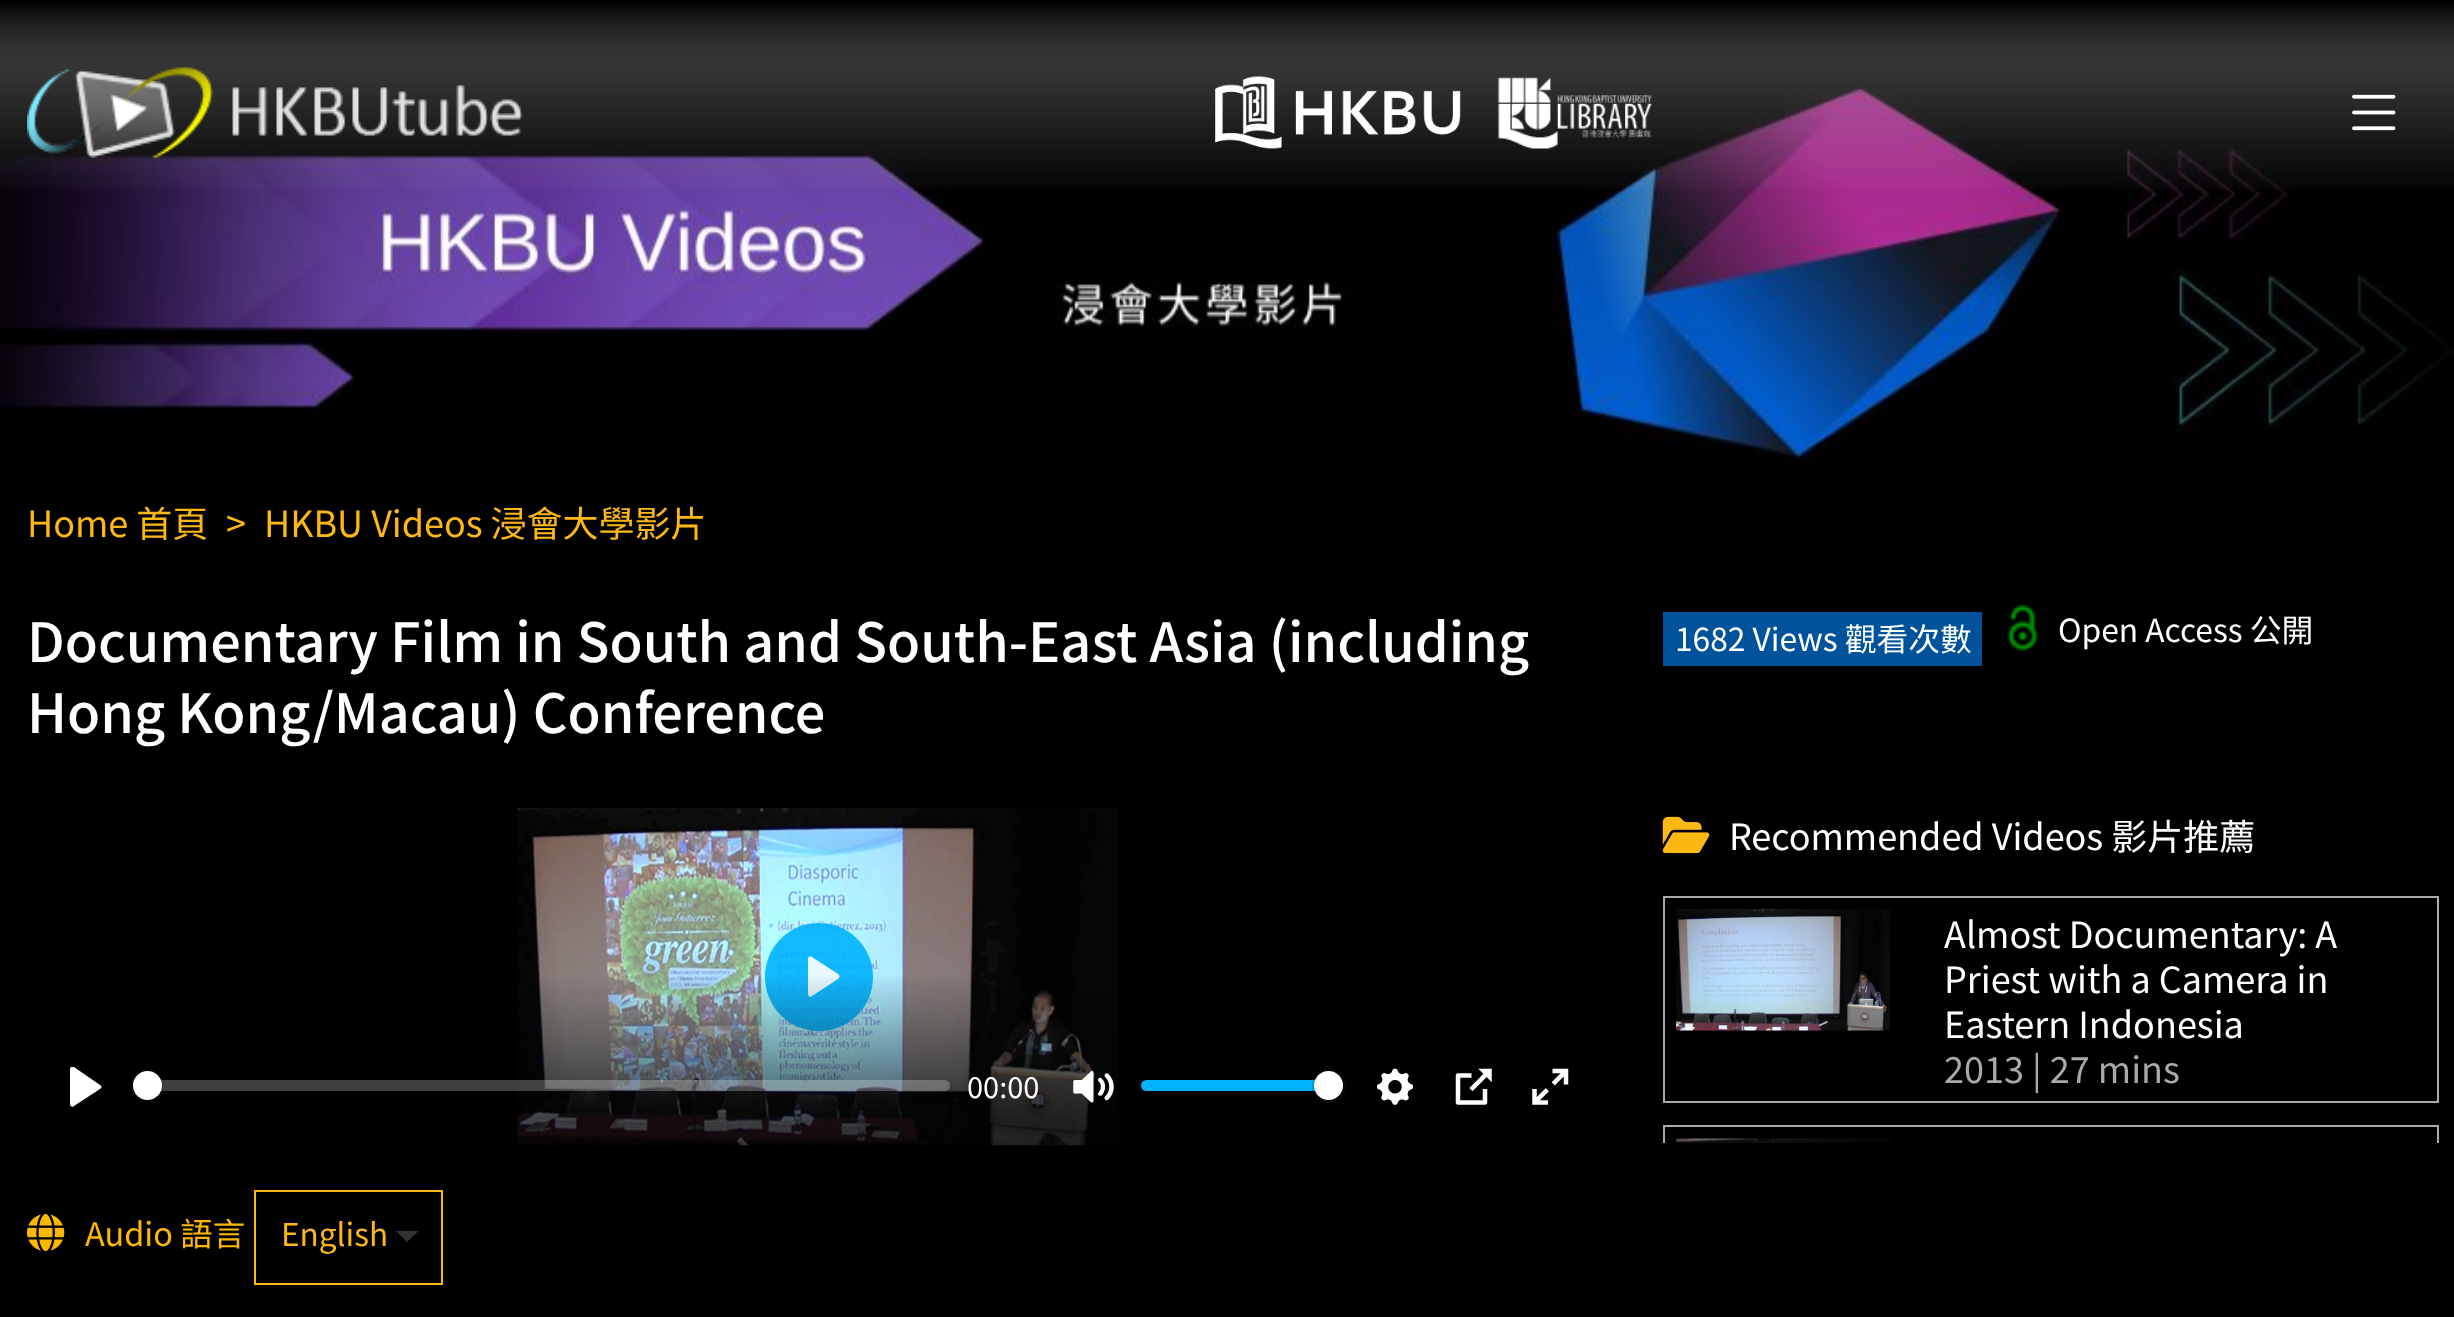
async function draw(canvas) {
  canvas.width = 2454;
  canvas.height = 1317;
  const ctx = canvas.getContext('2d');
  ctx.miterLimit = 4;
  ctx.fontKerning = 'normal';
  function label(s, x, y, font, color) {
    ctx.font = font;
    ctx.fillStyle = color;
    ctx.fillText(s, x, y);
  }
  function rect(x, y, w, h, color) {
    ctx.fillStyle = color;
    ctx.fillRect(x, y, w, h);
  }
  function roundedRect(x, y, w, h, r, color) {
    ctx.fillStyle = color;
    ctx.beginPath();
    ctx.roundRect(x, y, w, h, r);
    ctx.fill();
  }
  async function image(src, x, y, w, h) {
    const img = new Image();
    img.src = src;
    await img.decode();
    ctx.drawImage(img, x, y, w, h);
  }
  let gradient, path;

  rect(0, 0, 2454, 1317, '#000');
  await image('assets/img1.png', 0, 87, 2454, 378);
  gradient = ctx.createLinearGradient(1227, 466, 1227, 0);
  gradient.addColorStop(0.57, '#d0cfcf00');
  gradient.addColorStop(0.82, '#d0cfcf3b');
  gradient.addColorStop(1, '#000000a3');
  ctx.fillStyle = gradient;
  ctx.fillRect(0, 2, 2454, 187);
  await image('assets/img2.png', 27, 67, 496, 91);
  await image('assets/img3.png', 1215, 76, 246, 73);
  await image('assets/img4.png', 1497, 77, 155, 72);
  await image('assets/img5.png', 2352, 94, 44, 37);
  label('Home 首頁', 27, 537, '36px Noto Sans SC', '#fdb813');
  label('>', 226, 537, '36px Noto Sans SC', '#fdb813');
  label('HKBU Videos 浸會大學影片', 264, 537, '36px Noto Sans SC', '#fdb813');
  label('Documentary Film in South and South-East Asia (including', 27, 662, '500 54px Noto Sans SC', '#fff');
  label('Hong Kong/Macau) Conference', 27, 733, '500 54px Noto Sans SC', '#fff');
  rect(1663, 612, 319, 54, '#00529b');
  label('1682 Views 觀看次數', 1675, 651, '31.75px Noto Sans SC', '#fff');
  await image('assets/img6.png', 2006, 605, 33, 46);
  label('Open Access 公開', 2058, 642, '31.75px Noto Sans SC', '#fff');
  await image('assets/img7.png', 517, 808, 601, 338);
  ctx.fillStyle = '#00b2ffe6';
  ctx.beginPath();
  ctx.arc(819, 977, 54, 0, 2 * Math.PI);
  ctx.fill();
  ctx.fillStyle = '#ffffffe6';
  path = new Path2D('M838 974L812 957C810 955 808 957 808 959V994C808 996 810 998 812 996L838 979C840 978 840 975 838 974Z');
  ctx.fill(path);
  gradient = ctx.createLinearGradient(818, 972, 818, 1145);
  gradient.addColorStop(0, '#00000000');
  gradient.addColorStop(1, '#000000bf');
  ctx.fillStyle = gradient;
  ctx.fillRect(517, 977, 601, 168);
  ctx.save();
  ctx.beginPath();
  ctx.rect(65, 1067, 41, 40);
  ctx.clip();
  ctx.fillStyle = '#fff';
  path = new Path2D('M100 1085L74 1067C72 1066 70 1067 70 1069V1104C70 1106 72 1108 74 1106L100 1089C102 1088 102 1086 100 1085Z');
  ctx.fill(path);
  ctx.restore();
  roundedRect(133, 1080, 817, 11, 5.5, '#ffffff40');
  ctx.beginPath();
  ctx.roundRect(132, 1070, 31, 32, 15.5);
  ctx.strokeStyle = '#23282f33';
  ctx.lineWidth = 2;
  ctx.stroke();
  ctx.fillStyle = '#fff';
  ctx.beginPath();
  ctx.arc(147.5, 1085.5, 14.5, 0, 2 * Math.PI);
  ctx.fill();
  label('00:00', 967, 1098, '29px Noto Sans SC', '#fff');
  await image('assets/img8.png', 1073, 1071, 41, 32);
  roundedRect(1141, 1080, 202, 11, 5.5, '#00b2ff');
  ctx.beginPath();
  ctx.arc(1329, 1086, 16, 0, 2 * Math.PI);
  ctx.stroke();
  ctx.fillStyle = '#23282f26';
  ctx.filter = 'blur(1px)';
  ctx.beginPath();
  ctx.roundRect(1314, 1073, 29, 30, 14.5);
  ctx.fill();
  ctx.filter = 'none';
  ctx.fillStyle = '#fff';
  ctx.beginPath();
  ctx.arc(1328.5, 1085.5, 14.5, 0, 2 * Math.PI);
  ctx.fill();
  await image('assets/img9.png', 1377, 1068, 36, 37);
  await image('assets/img10.png', 1455, 1068, 37, 37);
  await image('assets/img11.png', 1532, 1068, 37, 37);
  await image('assets/img12.png', 1662, 816, 48, 38);
  label('Recommended Videos 影片推薦', 1729, 850, '36px Noto Sans SC', '#fff');
  ctx.strokeStyle = '#a7a9ac';
  ctx.strokeRect(1664, 897, 774, 205);
  await image('assets/img13.png', 1676, 909, 214, 122);
  label('Almost Documentary: A', 1944, 948, '36px Noto Sans SC', '#fff');
  label('Priest with a Camera in', 1944, 993, '36px Noto Sans SC', '#fff');
  label('Eastern Indonesia', 1944, 1038, '36px Noto Sans SC', '#fff');
  label('2013 | 27 mins', 1944, 1083, '36px Noto Sans SC', '#a7a9ac');
  ctx.save();
  ctx.beginPath();
  ctx.rect(1663, 873, 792, 270);
  ctx.clip();
  ctx.strokeRect(1664, 1126, 774, 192);
  ctx.restore();
  await image('assets/img14.png', 1676, 1138, 214, 5);
  await image('assets/img15.png', 27, 1213, 38, 39);
  label('Audio 語言', 85, 1246, '32.5px Noto Sans SC', '#fdb800');
  ctx.strokeStyle = '#fdb813';
  ctx.strokeRect(255, 1191, 187, 93);
  label('English', 281, 1246, '31.5px Noto Sans SC', '#fdb813');
  ctx.fillStyle = '#333';
  path = new Path2D('M396 1231H418.5L407 1242Z');
  ctx.fill(path);
}

draw(document.querySelector('canvas'));
